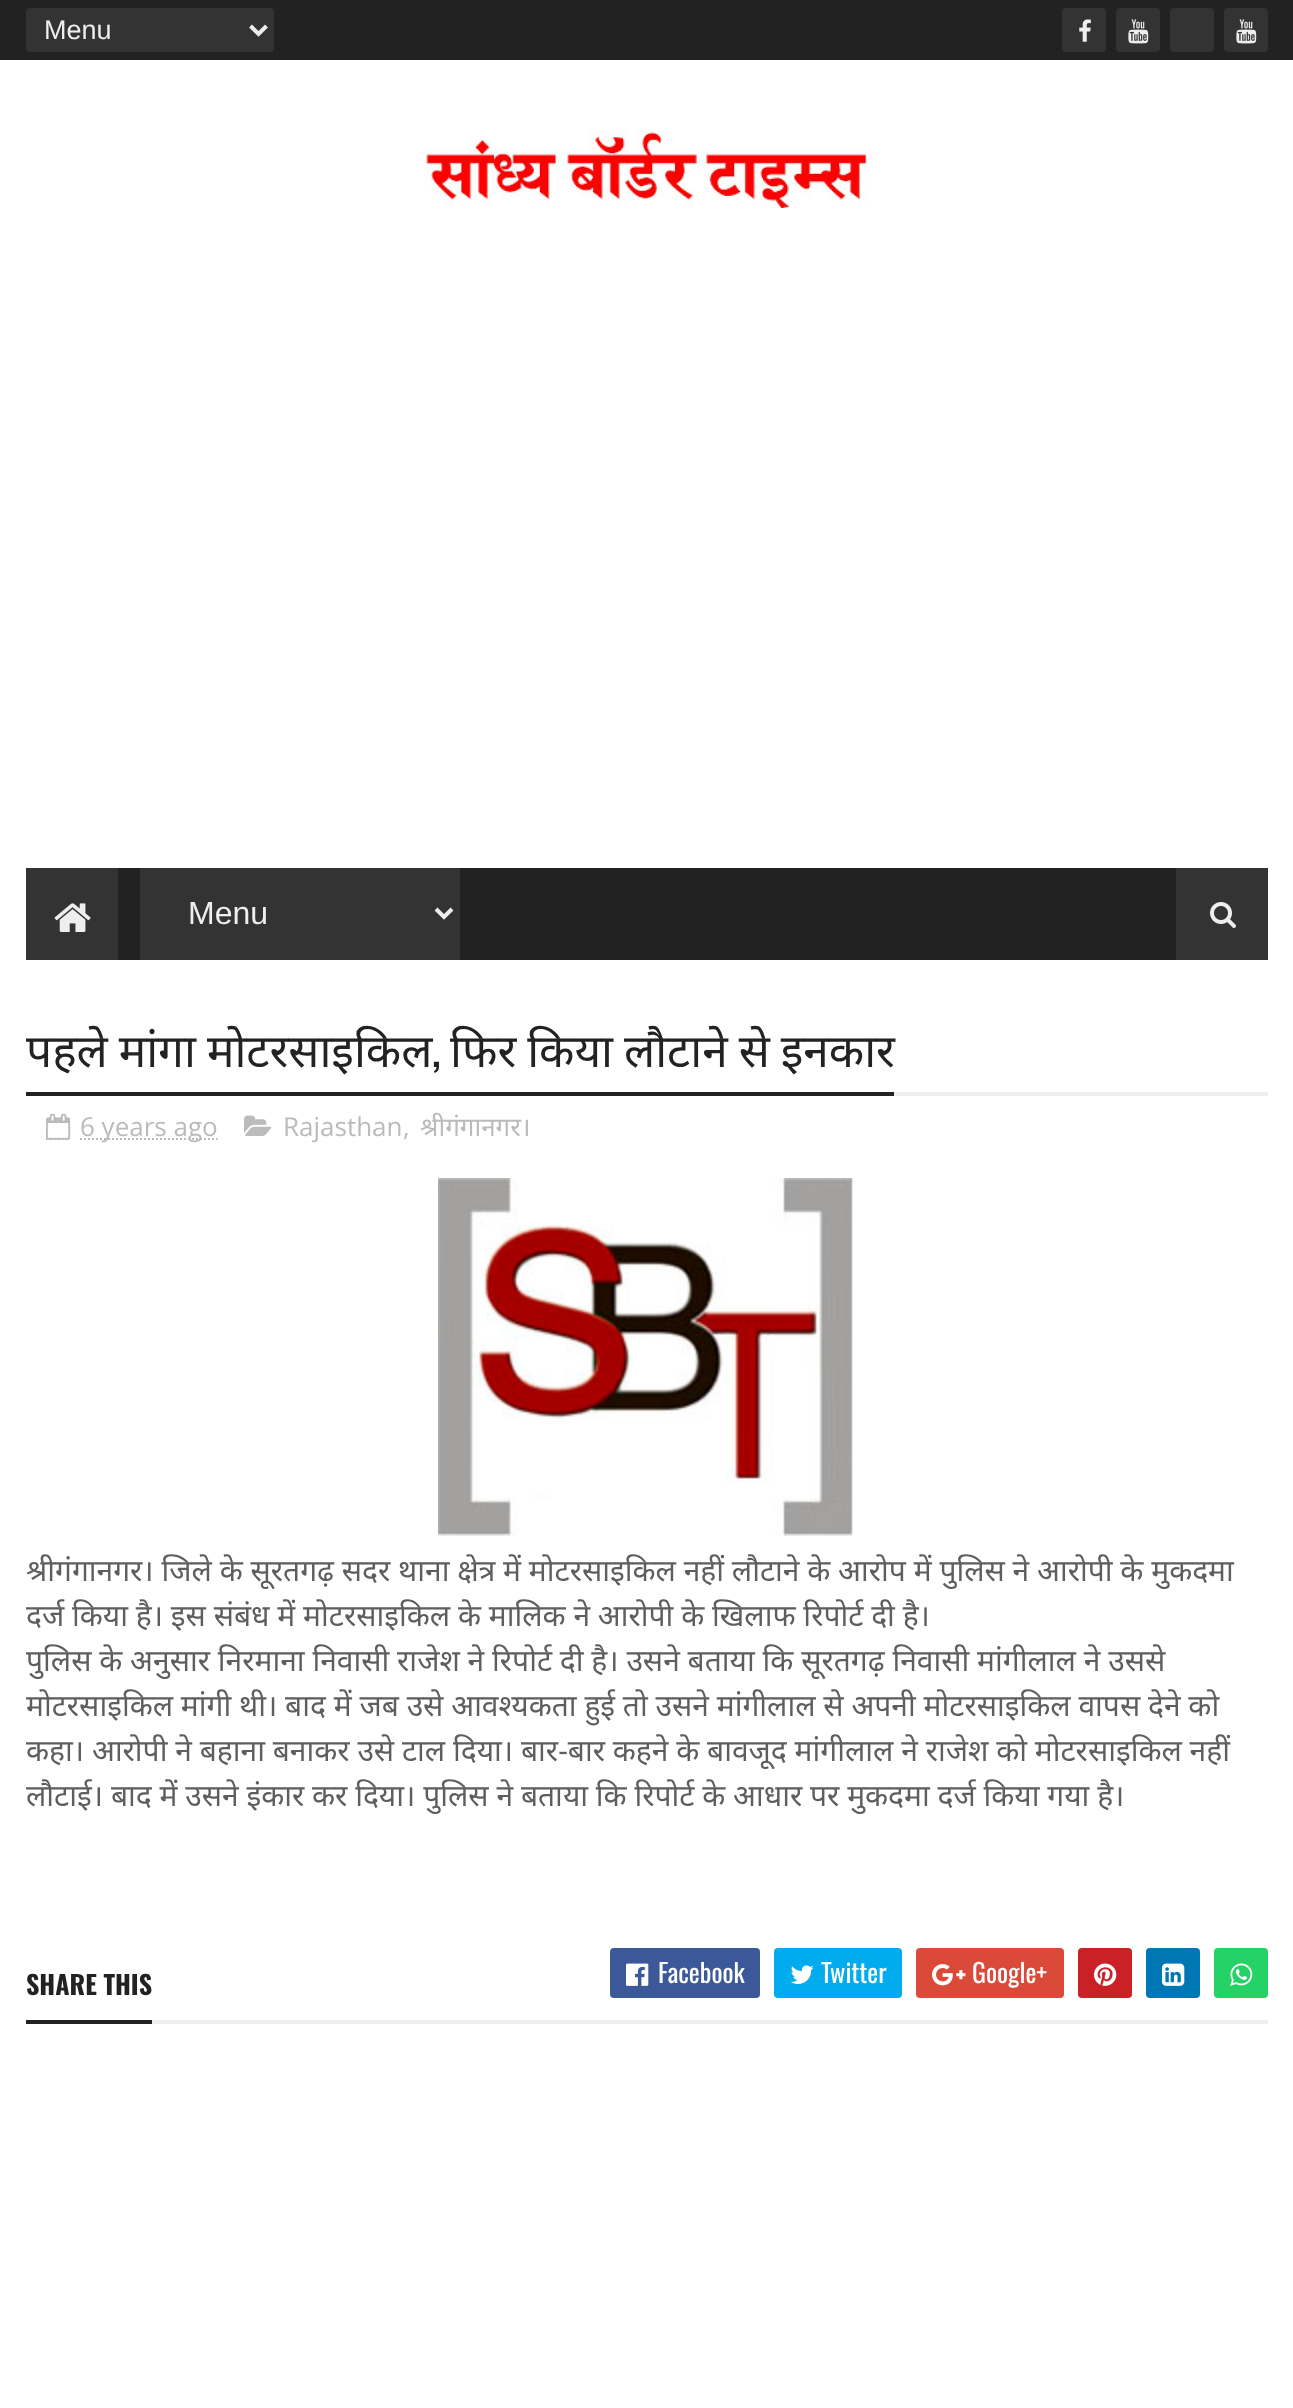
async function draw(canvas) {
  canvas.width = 1293;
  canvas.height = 2408;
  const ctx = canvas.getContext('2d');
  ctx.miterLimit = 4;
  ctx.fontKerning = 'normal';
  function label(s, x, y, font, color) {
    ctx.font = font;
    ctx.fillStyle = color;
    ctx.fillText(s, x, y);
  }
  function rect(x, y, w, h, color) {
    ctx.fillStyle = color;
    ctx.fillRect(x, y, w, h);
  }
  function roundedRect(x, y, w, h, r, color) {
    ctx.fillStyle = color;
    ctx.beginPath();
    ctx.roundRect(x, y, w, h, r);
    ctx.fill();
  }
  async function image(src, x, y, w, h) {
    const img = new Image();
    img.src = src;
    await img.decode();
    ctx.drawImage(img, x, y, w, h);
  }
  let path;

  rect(0, 0, 1293, 2408, '#fff');
  rect(0, 0, 1293, 60, '#222');
  roundedRect(26, 8, 248, 44, 4, '#333');
  path = new Path2D('M250.5 26L258.5 34L266.5 26');
  ctx.strokeStyle = '#eee';
  ctx.lineWidth = 4;
  ctx.stroke(path);
  label('Menu', 44, 39, '27px Liberation Sans', '#eee');
  roundedRect(1062, 8, 44, 44, 4, '#333');
  await image('assets/img1.png', 1079, 19, 12, 23);
  roundedRect(1116, 8, 44, 44, 4, '#333');
  await image('assets/img2.png', 1128, 19, 21, 25);
  roundedRect(1170, 8, 44, 44, 4, '#333');
  roundedRect(1224, 8, 44, 44, 4, '#333');
  await image('assets/img2.png', 1236, 19, 21, 25);
  await image('assets/img3.png', 424, 130, 444, 78);
  rect(118, 868, 1058, 92, '#222');
  rect(26, 868, 92, 92, '#333');
  await image('assets/img4.png', 54, 903, 37, 29);
  rect(140, 868, 320, 92, '#333');
  path = new Path2D('M436 909L444 917L452 909');
  ctx.stroke(path);
  label('Menu', 188, 924, '32px Liberation Sans', '#eee');
  rect(1176, 868, 92, 92, '#333');
  await image('assets/img5.png', 1210, 902, 26, 26);
  rect(894, 1092, 374, 4, '#eee');
  rect(26, 1092, 868, 4, '#222');
  ctx.save();
  ctx.beginPath();
  ctx.rect(26, 1010, 1242, 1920);
  ctx.clip();
  ctx.wordSpacing = '-1px';
  label('पहले मांगा मोटरसाइकिल', 26, 1067, '46px Noto Sans', '#222');
  ctx.restore();
  label(',', 432, 1067, '46px Oswald', '#222');
  ctx.wordSpacing = '-1px';
  label('फिर किया लौटाने से इनकार', 450, 1067, '46px Noto Sans', '#222');
  path = new Path2D('M46 1139H70');
  ctx.strokeStyle = '#bbb';
  ctx.lineWidth = 2;
  ctx.setLineDash([2, 2]);
  ctx.stroke(path);
  await image('assets/img6.png', 46, 1113, 25, 27);
  path = new Path2D('M80 1139H217.5');
  ctx.stroke(path);
  ctx.wordSpacing = '0px';
  label('6 years ago', 80, 1136, '26px Open Sans', '#bbb');
  await image('assets/img7.png', 244, 1115, 28, 21);
  label('Rajasthan', 283, 1136, '26px Open Sans', '#bbb');
  label(',', 403, 1136, '26px Open Sans', '#bbb');
  label('श्रीगंगानगर।', 420, 1136, '26px Noto Sans', '#bbb');
  await image('assets/img8.png', 438, 1178, 416, 358);
  ctx.save();
  ctx.beginPath();
  ctx.rect(26, 1178, 1242, 730);
  ctx.clip();
  label('श्रीगंगानगर। जिले के सूरतगढ़ सदर थाना क्षेत्र में मोटरसाइकिल नहीं लौटाने के आरोप में पुलिस ने आरोपी के मुकदमा', 26, 1581, '30px Noto Sans', '#5e5e5e');
  ctx.restore();
  label('दर्ज किया है। इस संबंध में मोटरसाइकिल के मालिक ने आरोपी के खिलाफ रिपोर्ट दी है।', 26, 1626, '30px Noto Sans', '#5e5e5e');
  ctx.save();
  ctx.beginPath();
  ctx.rect(26, 1178, 1242, 730);
  ctx.clip();
  label('पुलिस के अनुसार निरमाना निवासी राजेश ने रिपोर्ट दी है। उसने बताया कि सूरतगढ़ निवासी मांगीलाल ने उससे', 26, 1671, '30px Noto Sans', '#5e5e5e');
  label('मोटरसाइकिल मांगी थी। बाद में जब उसे आवश्यकता हुई तो उसने मांगीलाल से अपनी मोटरसाइकिल वापस देने को', 26, 1716, '30px Noto Sans', '#5e5e5e');
  ctx.restore();
  label('कहा। आरोपी ने बहाना बनाकर उसे टाल दिया। बार-बार कहने के बावजूद मांगीलाल ने राजेश को मोटरसाइकिल नहीं', 26, 1761, '30px Noto Sans', '#5e5e5e');
  ctx.save();
  ctx.beginPath();
  ctx.rect(26, 1178, 1242, 730);
  ctx.clip();
  label('लौटाई। बाद में उसने इंकार कर दिया। पुलिस ने बताया कि रिपोर्ट के आधार पर मुकदमा दर्ज किया गया है।', 26, 1806, '30px Noto Sans', '#5e5e5e');
  ctx.restore();
  rect(152, 2020, 1116, 4, '#eee');
  rect(26, 2020, 126, 4, '#222');
  label('SHARE THIS', 26, 1995, 'bold 26px Oswald', '#222');
  roundedRect(610, 1948, 150, 50, 4, '#3b5998');
  await image('assets/img9.png', 626, 1963, 23, 23);
  label('Facebook', 658, 1983, '26px Oswald', '#fff');
  roundedRect(774, 1948, 128, 50, 4, '#00acee');
  await image('assets/img10.png', 790, 1965, 24, 19);
  label('Twitter', 821, 1983, '26px Oswald', '#fff');
  roundedRect(916, 1948, 148, 50, 4, '#db4a39');
  await image('assets/img11.png', 932, 1964, 34, 22);
  label('Google+', 972, 1983, '26px Oswald', '#fff');
  roundedRect(1078, 1948, 54, 50, 4, '#ca2127');
  await image('assets/img12.png', 1094, 1963, 23, 23);
  roundedRect(1146, 1948, 54, 50, 4, '#0077b5');
  await image('assets/img13.png', 1162, 1963, 23, 23);
  roundedRect(1214, 1948, 54, 50, 4, '#25d266');
  await image('assets/img14.png', 1230, 1963, 23, 23);
}

draw(document.querySelector('canvas'));
